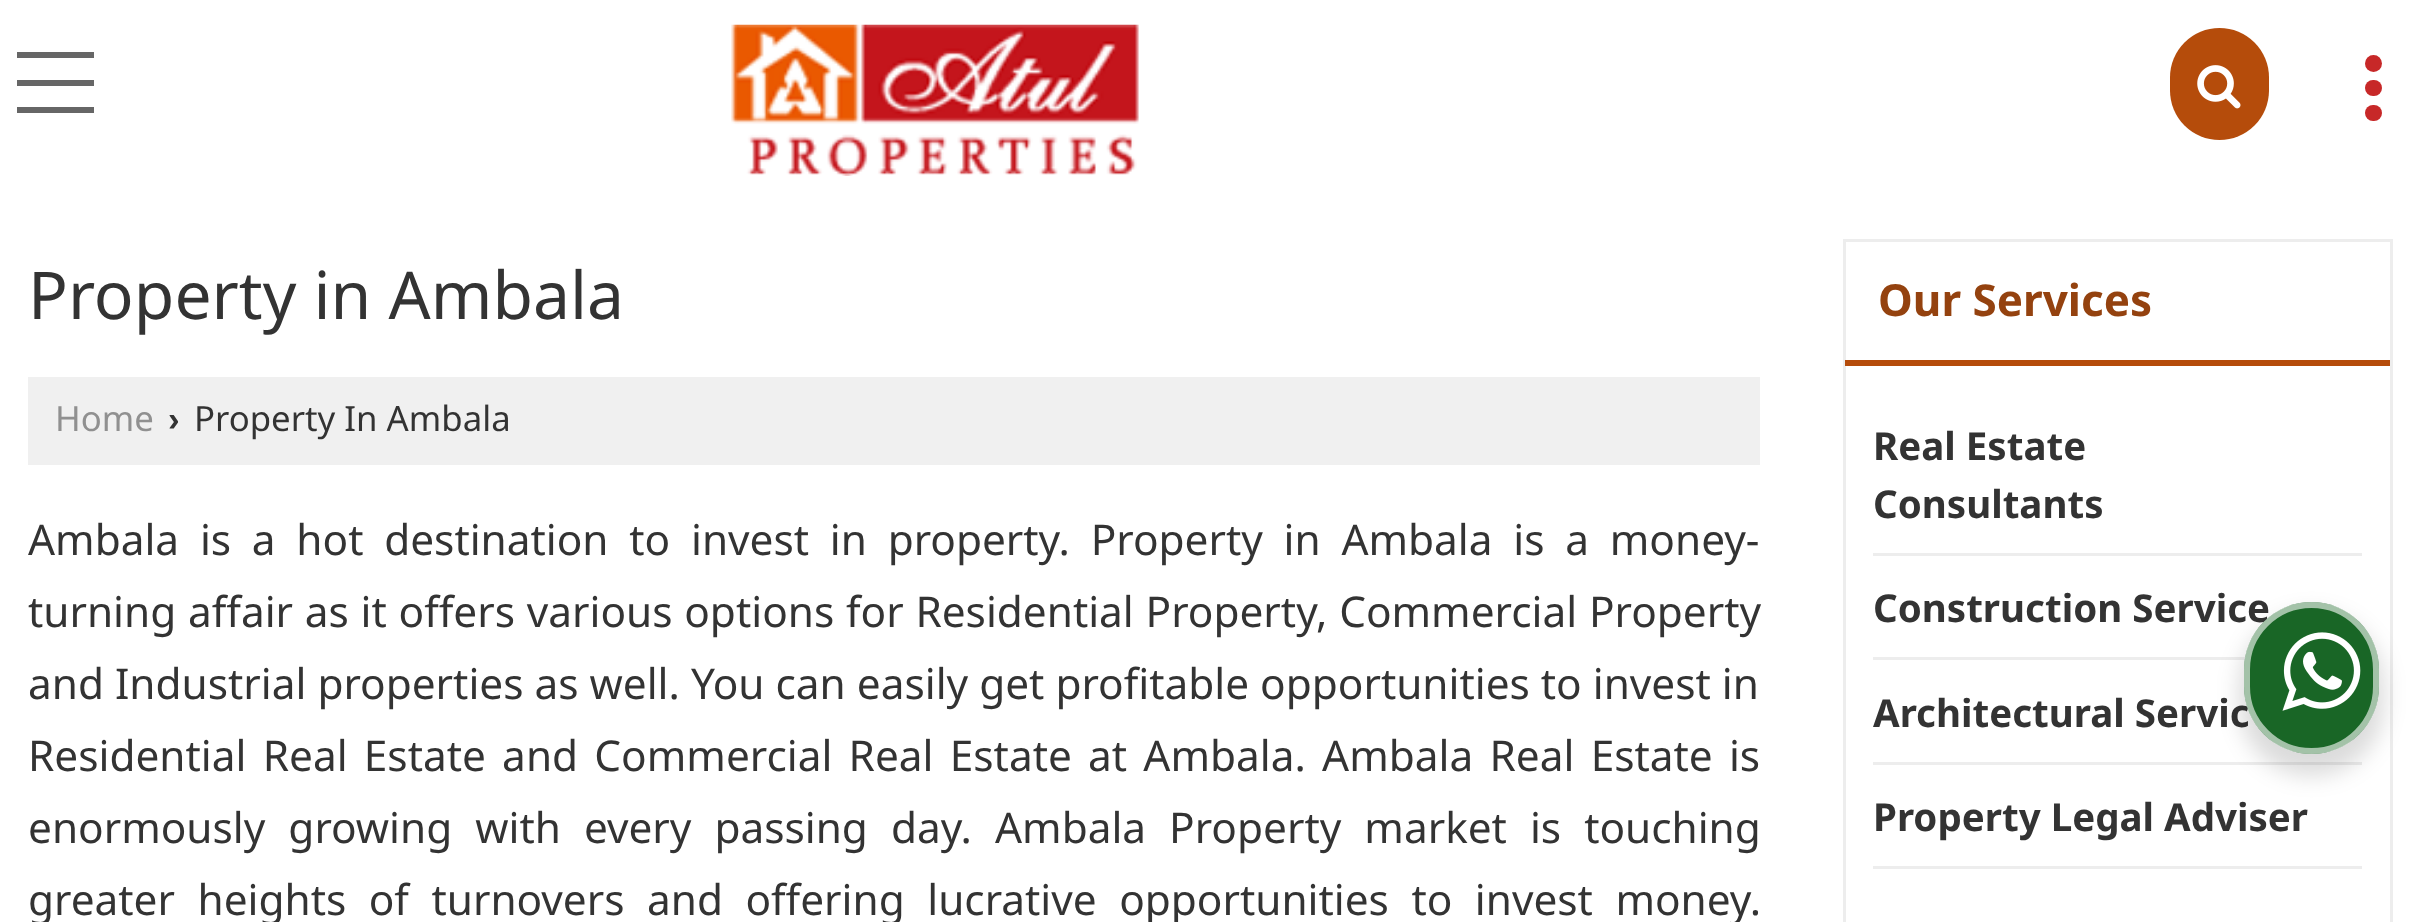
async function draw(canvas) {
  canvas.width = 2420;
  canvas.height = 922;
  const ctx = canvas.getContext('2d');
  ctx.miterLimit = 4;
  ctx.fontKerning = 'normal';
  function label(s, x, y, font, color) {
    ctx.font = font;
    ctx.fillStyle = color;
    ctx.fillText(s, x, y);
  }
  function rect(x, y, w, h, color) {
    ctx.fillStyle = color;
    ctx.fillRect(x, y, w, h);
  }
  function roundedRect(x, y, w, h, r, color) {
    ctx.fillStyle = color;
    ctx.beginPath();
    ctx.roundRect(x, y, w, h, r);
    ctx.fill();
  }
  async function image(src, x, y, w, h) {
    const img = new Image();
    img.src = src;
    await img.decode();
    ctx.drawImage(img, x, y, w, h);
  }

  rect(0, 0, 2420, 922, '#fff');
  await image('assets/img1.png', 731, 24, 408, 152);
  rect(17, 80, 77, 6, '#666');
  rect(17, 52, 77, 6, '#666');
  rect(17, 107, 77, 6, '#666');
  roundedRect(2170, 28, 99, 112, 49.5, '#b54c0b');
  await image('assets/img2.png', 2197, 65, 44, 44);
  roundedRect(2365, 80, 17, 16, 8, '#c72828');
  ctx.beginPath();
  ctx.arc(2373.5, 63.5, 8.5, 0, 2 * Math.PI);
  ctx.fill();
  roundedRect(2365, 105, 17, 16, 8, '#c72828');
  label('Property in Ambala', 28, 319, '66px Noto Sans', '#333');
  rect(28, 377, 1732, 88, '#f0f0f0');
  label('Home', 55, 431, '34.75px Noto Sans', '#909090');
  label('›', 168, 431, 'bold 34.75px Liberation Sans', '#333');
  label('Property In Ambala', 194, 431, '34.75px Noto Sans', '#333');
  ctx.wordSpacing = '9.75px';
  label('Ambala is a hot destination to invest in property. Property in Ambala is a money-', 28, 555, '42.35px Noto Sans', '#333');
  ctx.wordSpacing = '0.75px';
  label('turning affair as it offers various options for Residential Property, Commercial Property', 28, 627, '42.35px Noto Sans', '#333');
  ctx.wordSpacing = '0px';
  label('and Industrial properties as well. You can easily get profitable opportunities to invest in', 28, 699, '42.35px Noto Sans', '#333');
  ctx.wordSpacing = '5.25px';
  label('Residential Real Estate and Commercial Real Estate at Ambala. Ambala Real Estate is', 28, 771, '42.35px Noto Sans', '#333');
  ctx.wordSpacing = '12px';
  label('enormously growing with every passing day. Ambala Property market is touching', 28, 843, '42.35px Noto Sans', '#333');
  ctx.wordSpacing = '11.5px';
  label('greater heights of turnovers and offering lucrative opportunities to invest money.', 28, 915, '42.35px Noto Sans', '#333');
  ctx.strokeStyle = '#ededed';
  ctx.lineWidth = 3;
  ctx.strokeRect(1844.5, 240.5, 547, 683);
  rect(1845, 360, 545, 6, '#b54c0b');
  ctx.wordSpacing = '0px';
  label('Our Services', 1878, 316, 'bold 44px Noto Sans', '#94420f');
  rect(1873, 553, 489, 3, '#ededed');
  label('Real Estate', 1873, 460, 'bold 38.5px Noto Sans', '#333');
  label('Consultants', 1873, 518, 'bold 38.5px Noto Sans', '#333');
  rect(1873, 657, 373, 3, '#ededed');
  label('Construction Service', 1873, 622, 'bold 38.5px Noto Sans', '#333');
  rect(1873, 762, 489, 3, '#ededed');
  label('Architectural Servic', 1873, 727, 'bold 38.5px Noto Sans', '#333');
  rect(1873, 866, 489, 3, '#ededed');
  label('Property Legal Adviser', 1873, 831, 'bold 38.5px Noto Sans', '#333');
  ctx.fillStyle = '#00000024';
  ctx.filter = 'blur(11px)';
  ctx.beginPath();
  ctx.roundRect(2239, 613, 145, 163, 72.5);
  ctx.fill();
  ctx.filter = 'none';
  roundedRect(2244, 602, 135, 152, 67.5, '#196626');
  ctx.beginPath();
  ctx.roundRect(2247, 605, 129, 146, 64.5);
  ctx.strokeStyle = '#ffffff99';
  ctx.lineWidth = 6;
  ctx.stroke();
  await image('assets/img3.png', 2282, 632, 79, 79);
}

draw(document.querySelector('canvas'));
